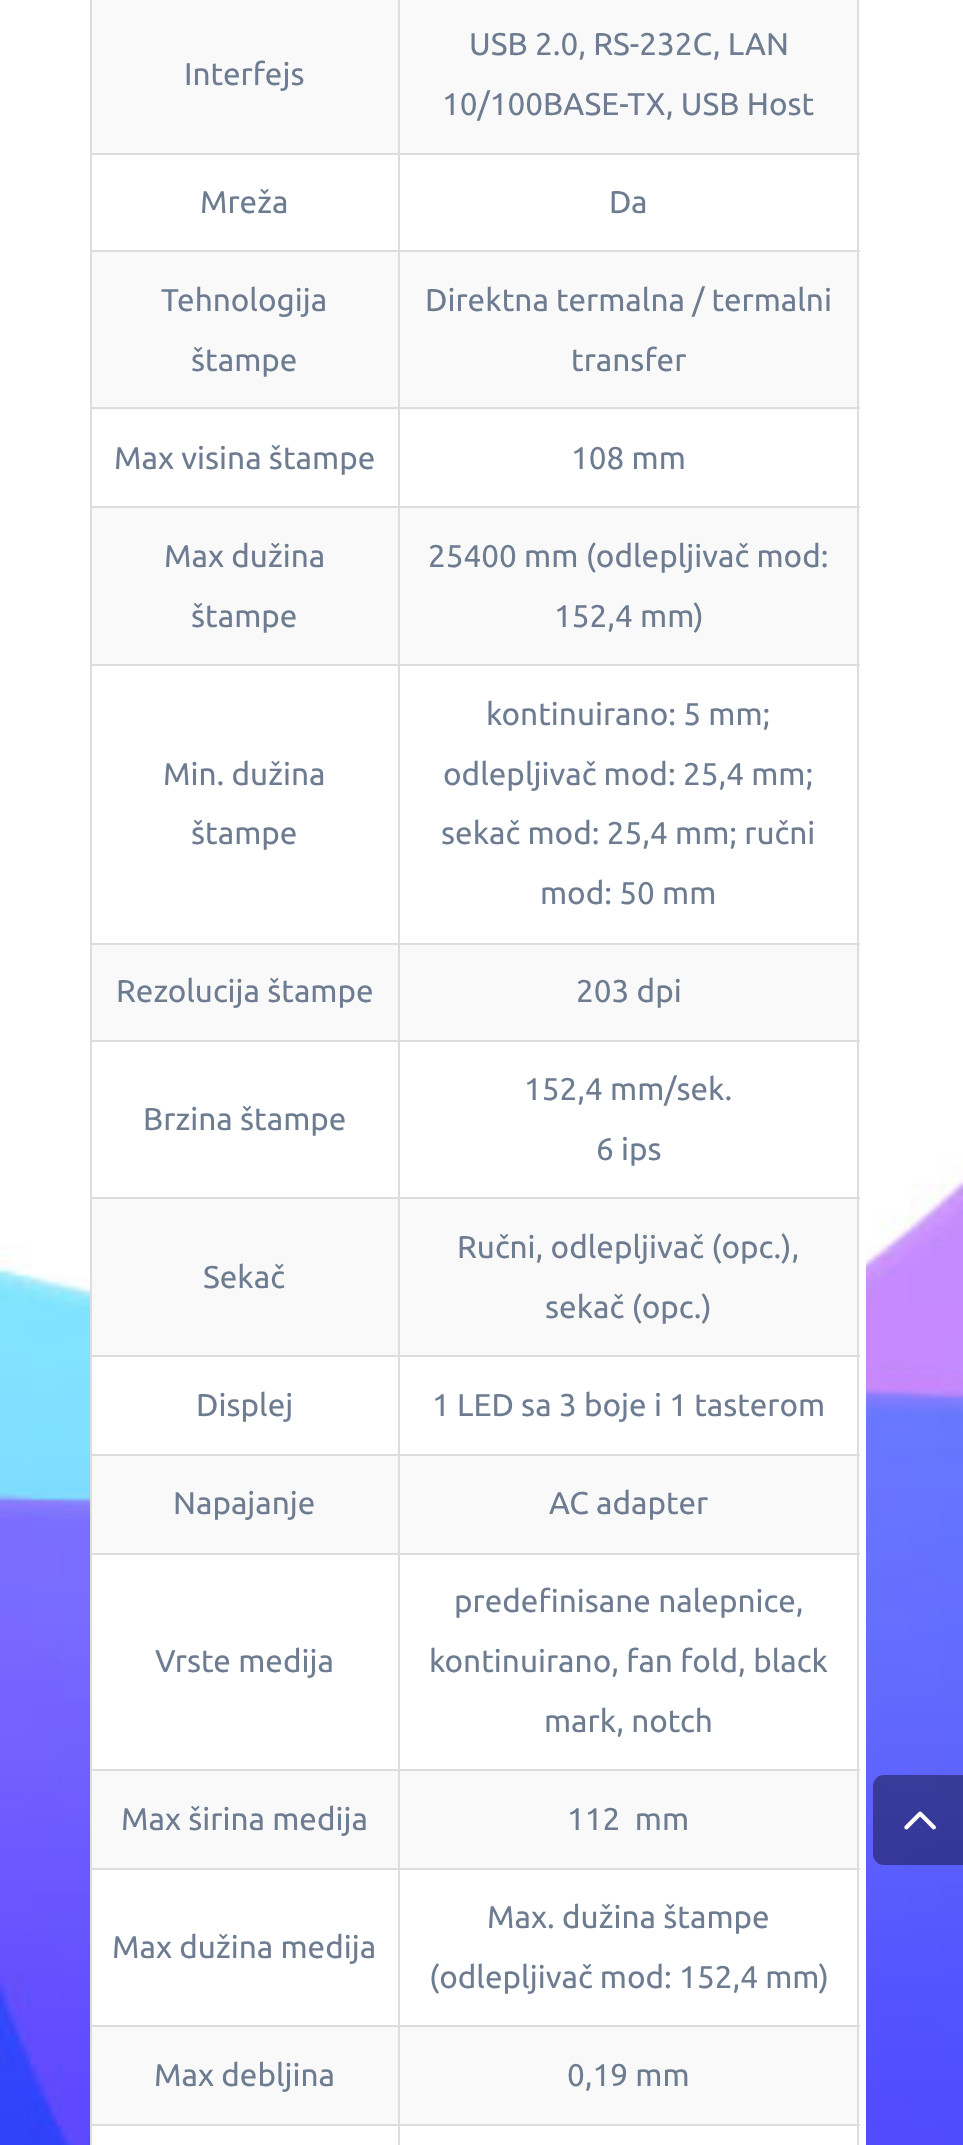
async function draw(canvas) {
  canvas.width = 963;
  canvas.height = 2145;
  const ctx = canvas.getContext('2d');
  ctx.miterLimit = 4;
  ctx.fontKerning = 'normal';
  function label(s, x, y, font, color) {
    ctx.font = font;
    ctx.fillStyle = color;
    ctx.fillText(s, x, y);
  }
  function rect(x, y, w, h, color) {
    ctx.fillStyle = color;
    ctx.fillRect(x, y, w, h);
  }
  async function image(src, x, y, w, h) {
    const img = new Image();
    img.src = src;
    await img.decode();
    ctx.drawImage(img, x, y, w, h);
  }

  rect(0, 0, 963, 2145, '#fff');
  await image('assets/img1.png', 0, 1155, 963, 990);
  rect(97, 1245, 769, 900, '#fff');
  rect(92, 0, 768, 153, '#f9f9f9');
  label('Interfejs', 184, 85, '31.5px Ubuntu', '#6d7c90');
  rect(398, 153, 462, 2, '#ddd');
  rect(398, 250, 462, 2, '#ddd');
  rect(92, 252, 768, 158, '#f9f9f9');
  rect(398, 407, 462, 2, '#ddd');
  rect(92, 508, 768, 156, '#f9f9f9');
  rect(398, 506, 462, 2, '#ddd');
  rect(398, 664, 462, 2, '#ddd');
  rect(398, 943, 462, 2, '#ddd');
  rect(92, 945, 768, 95, '#f9f9f9');
  rect(398, 1040, 462, 2, '#ddd');
  rect(398, 1197, 462, 2, '#ddd');
  rect(92, 1199, 768, 156, '#f9f9f9');
  rect(398, 1355, 462, 2, '#ddd');
  rect(398, 1454, 462, 2, '#ddd');
  rect(92, 1456, 768, 97, '#f9f9f9');
  rect(398, 1553, 462, 2, '#ddd');
  rect(398, 1769, 462, 2, '#ddd');
  rect(92, 1771, 768, 97, '#f9f9f9');
  rect(398, 1868, 462, 2, '#ddd');
  rect(398, 2025, 462, 2, '#ddd');
  rect(92, 2027, 768, 97, '#f9f9f9');
  rect(398, 2124, 462, 2, '#ddd');
  rect(398, 2124, 2, 21, '#ddd');
  rect(90, 2124, 311, 2, '#ddd');
  rect(398, 2025, 2, 101, '#ddd');
  rect(90, 2025, 311, 2, '#ddd');
  rect(398, 1868, 2, 159, '#ddd');
  rect(90, 1868, 311, 2, '#ddd');
  rect(398, 1769, 2, 101, '#ddd');
  rect(90, 1769, 311, 2, '#ddd');
  rect(398, 1553, 2, 218, '#ddd');
  rect(90, 1553, 311, 2, '#ddd');
  rect(398, 1454, 2, 101, '#ddd');
  rect(90, 1454, 311, 2, '#ddd');
  rect(398, 1355, 2, 101, '#ddd');
  rect(90, 1355, 311, 2, '#ddd');
  rect(398, 1197, 2, 160, '#ddd');
  rect(90, 1197, 311, 2, '#ddd');
  rect(398, 1040, 2, 159, '#ddd');
  rect(90, 1040, 311, 2, '#ddd');
  rect(398, 943, 2, 99, '#ddd');
  rect(90, 943, 311, 2, '#ddd');
  rect(398, 664, 2, 281, '#ddd');
  rect(90, 664, 311, 2, '#ddd');
  rect(398, 506, 2, 160, '#ddd');
  rect(90, 506, 311, 2, '#ddd');
  rect(398, 407, 2, 102, '#ddd');
  rect(90, 407, 311, 2, '#ddd');
  rect(398, 250, 2, 160, '#ddd');
  rect(90, 250, 311, 2, '#ddd');
  rect(398, 153, 2, 99, '#ddd');
  rect(90, 153, 311, 2, '#ddd');
  rect(398, 0, 2, 155, '#ddd');
  label('USB 2.0, RS-232C, LAN', 469, 55, '31.5px Ubuntu', '#6d7c90');
  label('10/100BASE-TX, USB Host', 442, 115, '31.5px Ubuntu', '#6d7c90');
  rect(90, 2124, 2, 21, '#ddd');
  rect(90, 2025, 2, 101, '#ddd');
  rect(90, 1868, 2, 159, '#ddd');
  rect(90, 1769, 2, 101, '#ddd');
  rect(90, 1553, 2, 218, '#ddd');
  rect(90, 1454, 2, 101, '#ddd');
  rect(90, 1355, 2, 101, '#ddd');
  rect(90, 1197, 2, 160, '#ddd');
  rect(90, 1040, 2, 159, '#ddd');
  rect(90, 943, 2, 99, '#ddd');
  rect(90, 664, 2, 281, '#ddd');
  rect(90, 506, 2, 160, '#ddd');
  rect(90, 407, 2, 102, '#ddd');
  rect(90, 250, 2, 160, '#ddd');
  rect(90, 0, 2, 252, '#ddd');
  label('Mreža', 200, 213, '31.5px Ubuntu', '#6d7c90');
  rect(857, 2124, 2, 21, '#ddd');
  rect(857, 2025, 2, 101, '#ddd');
  rect(857, 1868, 2, 159, '#ddd');
  rect(857, 1769, 2, 101, '#ddd');
  rect(857, 1553, 2, 218, '#ddd');
  rect(857, 1454, 2, 101, '#ddd');
  rect(857, 1355, 2, 101, '#ddd');
  rect(857, 1197, 2, 160, '#ddd');
  rect(857, 1040, 2, 159, '#ddd');
  rect(857, 943, 2, 99, '#ddd');
  rect(857, 664, 2, 281, '#ddd');
  rect(857, 506, 2, 160, '#ddd');
  rect(857, 407, 2, 102, '#ddd');
  rect(857, 250, 2, 160, '#ddd');
  rect(857, 0, 2, 252, '#ddd');
  label('Da', 609, 213, '31.5px Ubuntu', '#6d7c90');
  label('Tehnologija', 161, 311, '31.5px Ubuntu', '#6d7c90');
  label('štampe', 191, 371, '31.5px Ubuntu', '#6d7c90');
  label('Direktna termalna / termalni', 425, 311, '31.5px Ubuntu', '#6d7c90');
  label('transfer', 571, 371, '31.5px Ubuntu', '#6d7c90');
  label('Max visina štampe', 114, 469, '31.5px Ubuntu', '#6d7c90');
  label('108 mm', 571, 469, '31.5px Ubuntu', '#6d7c90');
  label('Max dužina', 164, 567, '31.5px Ubuntu', '#6d7c90');
  label('štampe', 191, 627, '31.5px Ubuntu', '#6d7c90');
  label('25400 mm (odlepljivač mod:', 428, 567, '31.5px Ubuntu', '#6d7c90');
  label('152,4 mm)', 554, 627, '31.5px Ubuntu', '#6d7c90');
  label('Min. dužina', 163, 785, '31.5px Ubuntu', '#6d7c90');
  label('štampe', 191, 844, '31.5px Ubuntu', '#6d7c90');
  label('kontinuirano: 5 mm;', 486, 725, '31.5px Ubuntu', '#6d7c90');
  label('odlepljivač mod: 25,4 mm;', 443, 785, '31.5px Ubuntu', '#6d7c90');
  label('sekač mod: 25,4 mm; ručni', 441, 844, '31.5px Ubuntu', '#6d7c90');
  label('mod: 50 mm', 540, 904, '31.5px Ubuntu', '#6d7c90');
  label('Rezolucija štampe', 116, 1002, '31.5px Ubuntu', '#6d7c90');
  label('203 dpi', 576, 1002, '31.5px Ubuntu', '#6d7c90');
  label('Brzina štampe', 143, 1130, '31.5px Ubuntu', '#6d7c90');
  label('152,4 mm/sek.', 524, 1100, '31.5px Ubuntu', '#6d7c90');
  label('6 ips', 596, 1160, '31.5px Ubuntu', '#6d7c90');
  label('Sekač', 203, 1288, '31.5px Ubuntu', '#6d7c90');
  label('Ručni, odlepljivač (opc.),', 457, 1258, '31.5px Ubuntu', '#6d7c90');
  label('sekač (opc.)', 545, 1318, '31.5px Ubuntu', '#6d7c90');
  rect(92, 1357, 5, 97, '#fff');
  label('Displej', 196, 1416, '31.5px Ubuntu', '#6d7c90');
  label('1 LED sa 3 boje i 1 tasterom', 432, 1416, '31.5px Ubuntu', '#6d7c90');
  label('Napajanje', 173, 1514, '31.5px Ubuntu', '#6d7c90');
  label('AC adapter', 549, 1514, '31.5px Ubuntu', '#6d7c90');
  rect(92, 1555, 5, 214, '#fff');
  label('Vrste medija', 155, 1672, '31.5px Ubuntu', '#6d7c90');
  label('predefinisane nalepnice,', 454, 1612, '31.5px Ubuntu', '#6d7c90');
  label('kontinuirano, fan fold, black', 429, 1672, '31.5px Ubuntu', '#6d7c90');
  label('mark, notch', 544, 1732, '31.5px Ubuntu', '#6d7c90');
  label('Max širina medija', 121, 1830, '31.5px Ubuntu', '#6d7c90');
  label('112  mm', 567, 1830, '31.5px Ubuntu', '#6d7c90');
  rect(92, 1870, 5, 155, '#fff');
  label('Max dužina medija', 112, 1958, '31.5px Ubuntu', '#6d7c90');
  label('Max. dužina štampe', 487, 1928, '31.5px Ubuntu', '#6d7c90');
  label('(odlepljivač mod: 152,4 mm)', 429, 1988, '31.5px Ubuntu', '#6d7c90');
  label('Max debljina', 154, 2086, '31.5px Ubuntu', '#6d7c90');
  label('0,19 mm', 567, 2086, '31.5px Ubuntu', '#6d7c90');
  rect(92, 2126, 5, 19, '#fff');
  ctx.fillStyle = '#00000066';
  ctx.beginPath();
  ctx.roundRect(873, 1775, 90, 90, [11, 0, 0, 11]);
  ctx.fill();
  await image('assets/img2.png', 904, 1811, 32, 19);
}

draw(document.querySelector('canvas'));
